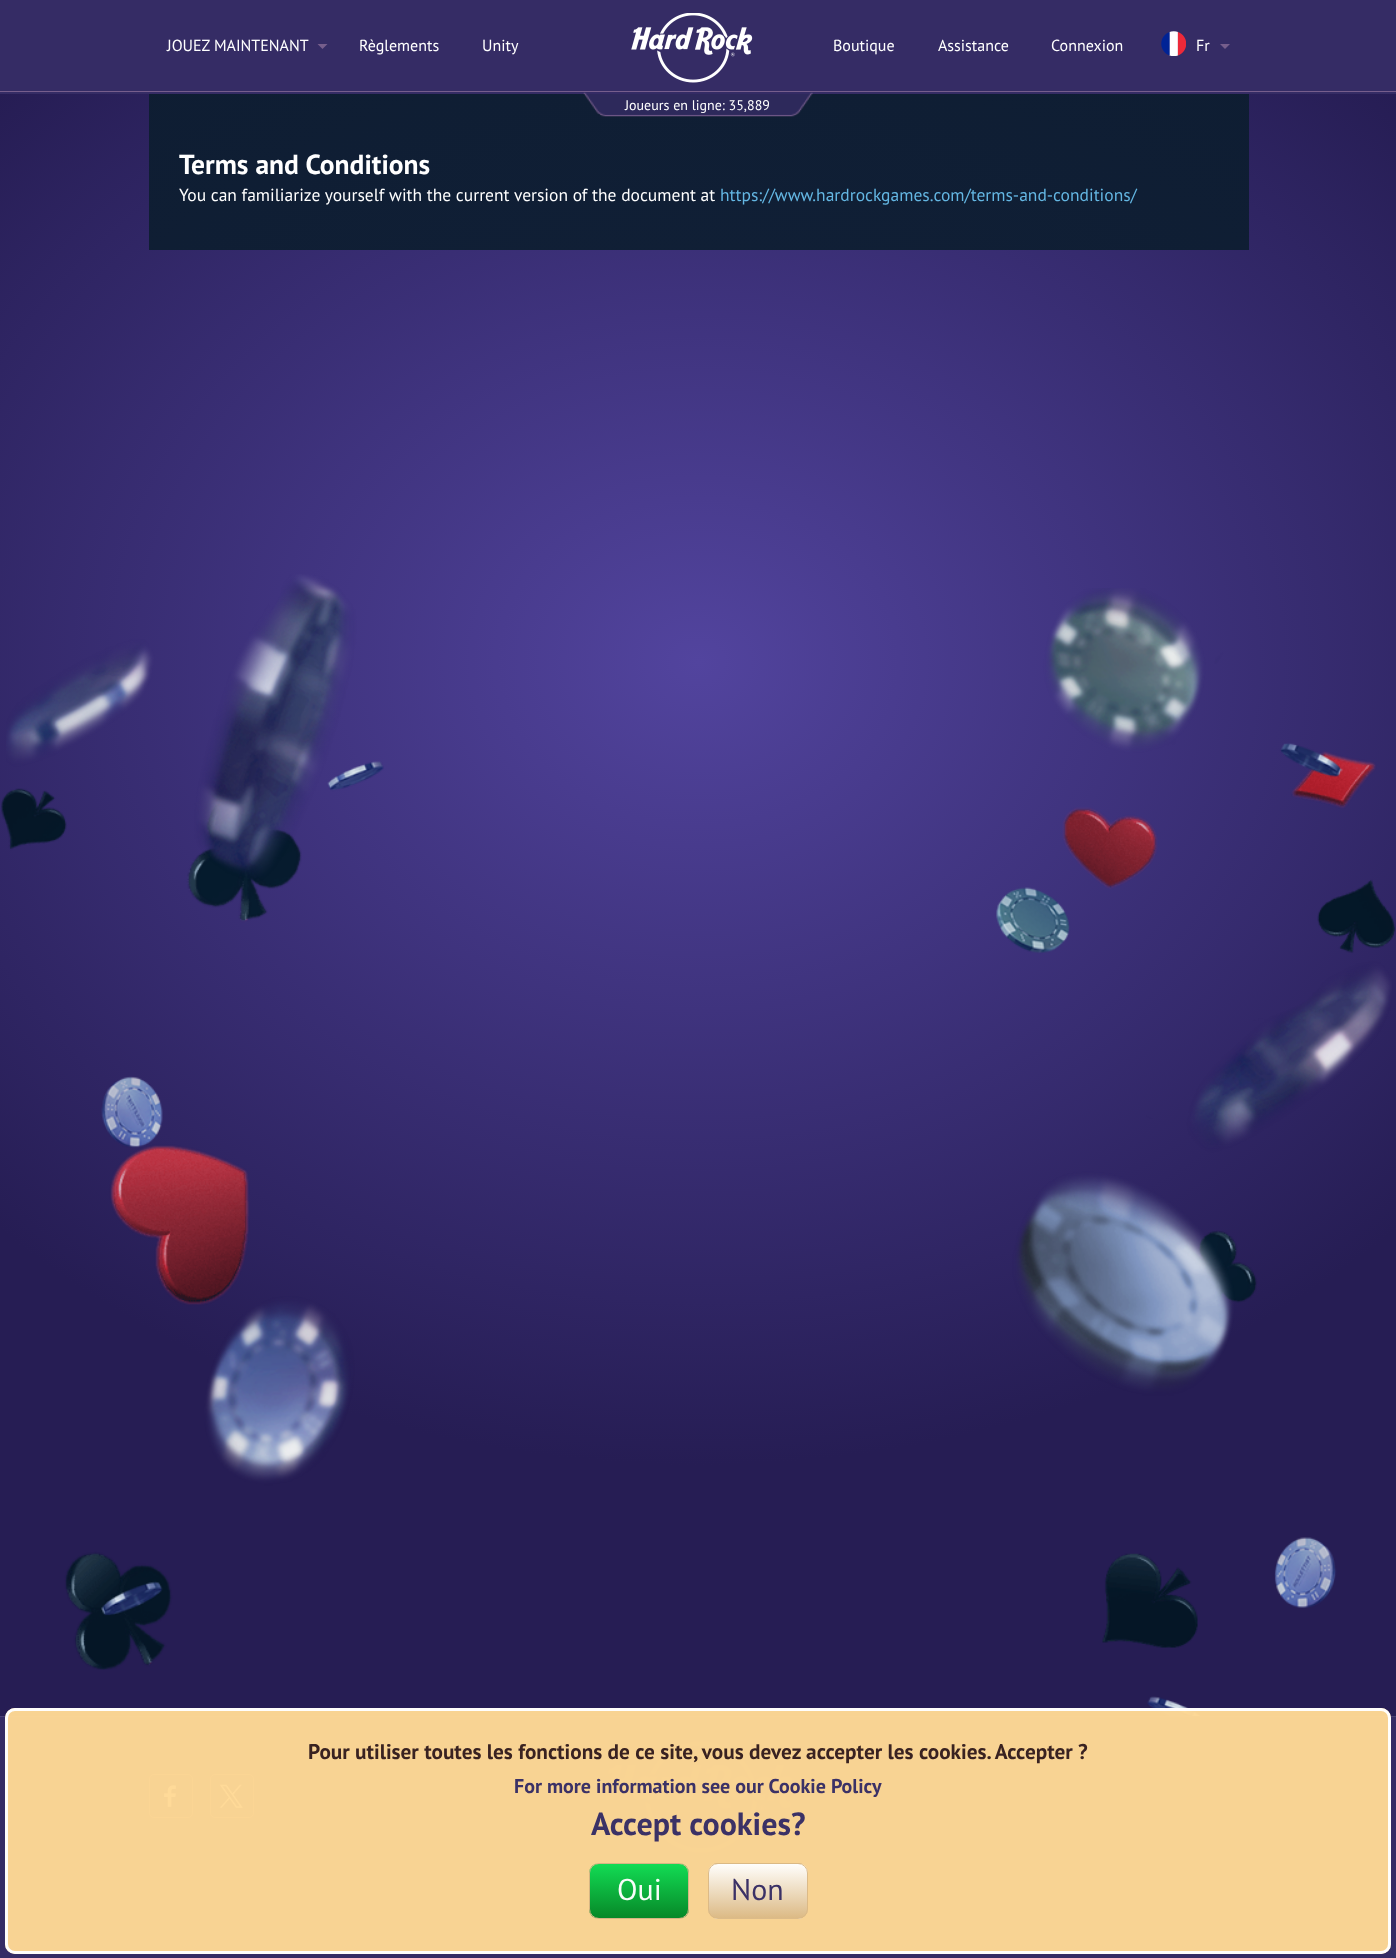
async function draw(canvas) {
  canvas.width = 1396;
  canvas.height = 1958;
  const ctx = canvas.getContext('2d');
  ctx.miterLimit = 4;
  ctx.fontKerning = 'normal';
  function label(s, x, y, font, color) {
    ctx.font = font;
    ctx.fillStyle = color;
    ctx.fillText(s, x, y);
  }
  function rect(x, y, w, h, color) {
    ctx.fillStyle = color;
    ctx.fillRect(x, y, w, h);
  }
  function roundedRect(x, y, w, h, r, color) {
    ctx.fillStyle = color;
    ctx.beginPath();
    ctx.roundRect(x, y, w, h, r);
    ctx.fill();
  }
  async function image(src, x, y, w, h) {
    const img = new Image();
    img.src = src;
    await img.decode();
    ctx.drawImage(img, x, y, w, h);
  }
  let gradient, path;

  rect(0, 0, 1396, 1958, '#352c65');
  rect(0, 91, 1396, 1, '#765e8c');
  label('JOUEZ MAINTENANT', 167, 51, '16px PT Sans', '#fff');
  ctx.fillStyle = '#765e8c';
  path = new Path2D('M317.5 44H327.5L322.5 49Z');
  ctx.fill(path);
  label('Règlements', 359, 51, '16px PT Sans', '#fff');
  label('Unity', 482, 51, '16px PT Sans', '#fff');
  await image('assets/img1.png', 631, 13, 122, 70);
  label('Boutique', 833, 51, '16px PT Sans', '#fff');
  label('Assistance', 938, 51, '16px PT Sans', '#fff');
  label('Connexion', 1051, 51, '16px PT Sans', '#fff');
  await image('assets/img2.png', 1161, 31, 25, 25);
  label('Fr', 1196, 51, '16px PT Sans', '#fff');
  ctx.fillStyle = '#765e8c';
  path = new Path2D('M1220 44H1230L1225 49Z');
  ctx.fill(path);
  gradient = ctx.createRadialGradient(698, 813.69, 0, 698, 813.69, 987);
  gradient.addColorStop(0, '#52449e');
  gradient.addColorStop(1, '#261d54');
  ctx.fillStyle = gradient;
  ctx.beginPath();
  ctx.rect(0, 94, 1396, 1622);
  ctx.save();
  ctx.clip();
  ctx.scale(1, 803 / 987);
  ctx.fillRect(0, 0, 1396, 2407);
  ctx.restore();
  gradient = ctx.createRadialGradient(698, 813.69, 0, 698, 813.69, 987);
  gradient.addColorStop(0, '#122139');
  gradient.addColorStop(1, '#0e1d32');
  ctx.fillStyle = gradient;
  ctx.beginPath();
  ctx.rect(149, 94, 1100, 156);
  ctx.save();
  ctx.clip();
  ctx.scale(1, 803 / 987);
  ctx.fillRect(0, 0, 1396, 2407);
  ctx.restore();
  await image('assets/img3.png', 583, 92, 230, 25);
  label('Joueurs en ligne: 35,889', 625, 110, '14px PT Sans', '#fff');
  label('Terms and Conditions', 179, 174, 'bold 27.5px PT Sans', '#fff');
  label('You can familiarize yourself with the current version of the document at', 179, 201, '17.5px PT Sans', '#fff');
  label('https://www.hardrockgames.com/terms-and-conditions/', 720, 201, '17.5px PT Sans', '#64b7e3');
  await image('assets/img6.png', 1, 788, 301, 882);
  await image('assets/img4.png', 6, 574, 378, 1042);
  await image('assets/img7.png', 1062, 751, 334, 897);
  await image('assets/img5.png', 996, 588, 396, 1128);
  rect(0, 1716, 1396, 1, '#494174');
  ctx.fillStyle = '#2e255b';
  ctx.beginPath();
  ctx.roundRect(149.5, 1774.5, 43, 43, 4.5);
  ctx.fill();
  ctx.strokeStyle = '#765e8c';
  ctx.stroke();
  await image('assets/img8.png', 164, 1785, 12, 22);
  ctx.beginPath();
  ctx.roundRect(210.5, 1774.5, 43, 43, 4.5);
  ctx.fill();
  ctx.stroke();
  await image('assets/img9.png', 219, 1784, 24, 24);
  await image('assets/img10.png', 605, 1741, 188, 112);
  roundedRect(5, 1708, 1386, 246, 10, '#ffd995f7');
  ctx.beginPath();
  ctx.roundRect(6.5, 1709.5, 1383, 243, 8.5);
  ctx.strokeStyle = '#fffffff7';
  ctx.lineWidth = 3;
  ctx.stroke();
  label('Pour utiliser toutes les fonctions de ce site, vous devez accepter les cookies. Accepter ?', 308, 1759, 'bold 21.25px PT Sans', '#392221');
  label('For more information see our Cookie Policy', 514, 1793, 'bold 20px PT Sans', '#3b3166');
  label('Accept cookies?', 591, 1835, 'bold 32px PT Sans', '#3b3166');
  ctx.save();
  ctx.beginPath();
  ctx.roundRect(589, 1863, 100, 56, 10);
  ctx.clip();
  gradient = ctx.createLinearGradient(639, 1864, 639, 1918);
  gradient.addColorStop(0, '#12dc54');
  gradient.addColorStop(1, '#078828');
  ctx.fillStyle = gradient;
  ctx.fillRect(589, 1864, 100, 54);
  ctx.restore();
  ctx.beginPath();
  ctx.roundRect(589.5, 1863.5, 99, 55, 9.5);
  ctx.strokeStyle = '#d6b584';
  ctx.lineWidth = 1;
  ctx.stroke();
  label('Oui', 617, 1900, '30px PT Sans', '#f8fdf9');
  ctx.save();
  ctx.beginPath();
  ctx.roundRect(708, 1863, 100, 56, 10);
  ctx.clip();
  gradient = ctx.createLinearGradient(758, 1810, 758, 1864);
  gradient.addColorStop(0, '#f9f9fa');
  gradient.addColorStop(1, '#d6b584');
  ctx.fillStyle = gradient;
  ctx.fillRect(708, 1863, 100, 1);
  gradient = ctx.createLinearGradient(758, 1864, 758, 1918);
  gradient.addColorStop(0, '#fffefc');
  gradient.addColorStop(1, '#dcba85');
  ctx.fillStyle = gradient;
  ctx.fillRect(708, 1864, 100, 54);
  gradient = ctx.createLinearGradient(758, 1918, 758, 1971);
  gradient.addColorStop(0, '#f9f9fa');
  gradient.addColorStop(1, '#d6b584');
  ctx.fillStyle = gradient;
  ctx.fillRect(708, 1918, 100, 1);
  ctx.restore();
  ctx.beginPath();
  ctx.roundRect(708.5, 1863.5, 99, 55, 9.5);
  ctx.strokeStyle = '#dbb985f7';
  ctx.stroke();
  label('Non', 731, 1900, '30px PT Sans', '#3b3166');
}

draw(document.querySelector('canvas'));
